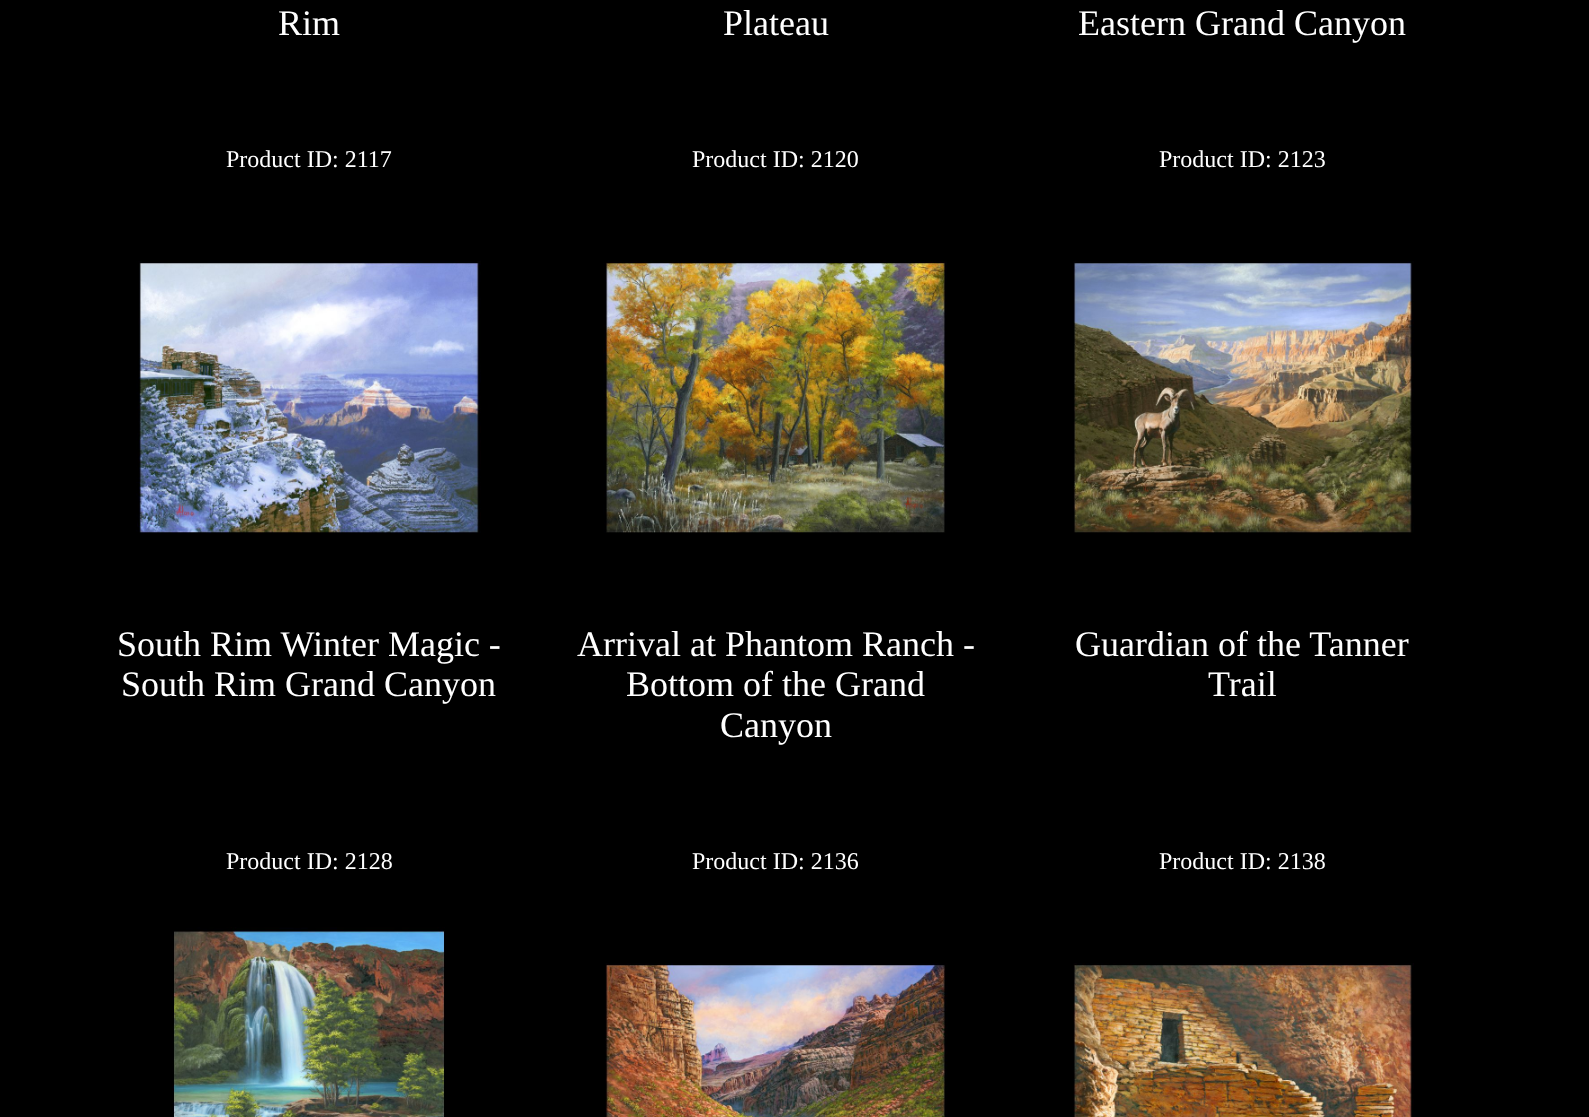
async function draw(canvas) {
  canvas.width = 1589;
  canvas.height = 1117;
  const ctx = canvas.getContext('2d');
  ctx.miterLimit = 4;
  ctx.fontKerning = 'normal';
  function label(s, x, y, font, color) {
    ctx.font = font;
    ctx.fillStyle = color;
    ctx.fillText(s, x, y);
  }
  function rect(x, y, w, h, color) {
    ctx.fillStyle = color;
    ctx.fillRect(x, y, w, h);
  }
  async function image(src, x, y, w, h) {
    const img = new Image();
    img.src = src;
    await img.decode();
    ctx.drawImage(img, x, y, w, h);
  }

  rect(0, 0, 1589, 1117, '#000');
  label('Rim', 278, 35, '36px Liberation Serif', '#fff');
  label('Plateau', 723, 35, '36px Liberation Serif', '#fff');
  label('Eastern Grand Canyon', 1078, 35, '36px Liberation Serif', '#fff');
  label('Product ID: 2117', 226, 167, '24px Liberation Serif', '#fff');
  await image('assets/img1.png', 136, 260, 345, 274);
  label('South Rim Winter Magic -', 117, 656, '36px Liberation Serif', '#fff');
  label('South Rim Grand Canyon', 121, 696, '36px Liberation Serif', '#fff');
  label('Product ID: 2120', 692, 167, '24px Liberation Serif', '#fff');
  await image('assets/img2.png', 603, 260, 344, 273);
  label('Arrival at Phantom Ranch -', 577, 656, '36px Liberation Serif', '#fff');
  label('Bottom of the Grand', 626, 696, '36px Liberation Serif', '#fff');
  label('Canyon', 720, 737, '36px Liberation Serif', '#fff');
  label('Product ID: 2123', 1159, 167, '24px Liberation Serif', '#fff');
  await image('assets/img3.png', 1073, 261, 341, 272);
  label('Guardian of the Tanner', 1075, 656, '36px Liberation Serif', '#fff');
  label('Trail', 1208, 696, '36px Liberation Serif', '#fff');
  label('Product ID: 2128', 226, 869, '24px Liberation Serif', '#fff');
  await image('assets/img4.png', 172, 927, 273, 190);
  label('Product ID: 2136', 692, 869, '24px Liberation Serif', '#fff');
  await image('assets/img5.png', 605, 963, 343, 154);
  label('Product ID: 2138', 1159, 869, '24px Liberation Serif', '#fff');
  await image('assets/img6.png', 1073, 963, 341, 154);
}

draw(document.querySelector('canvas'));
